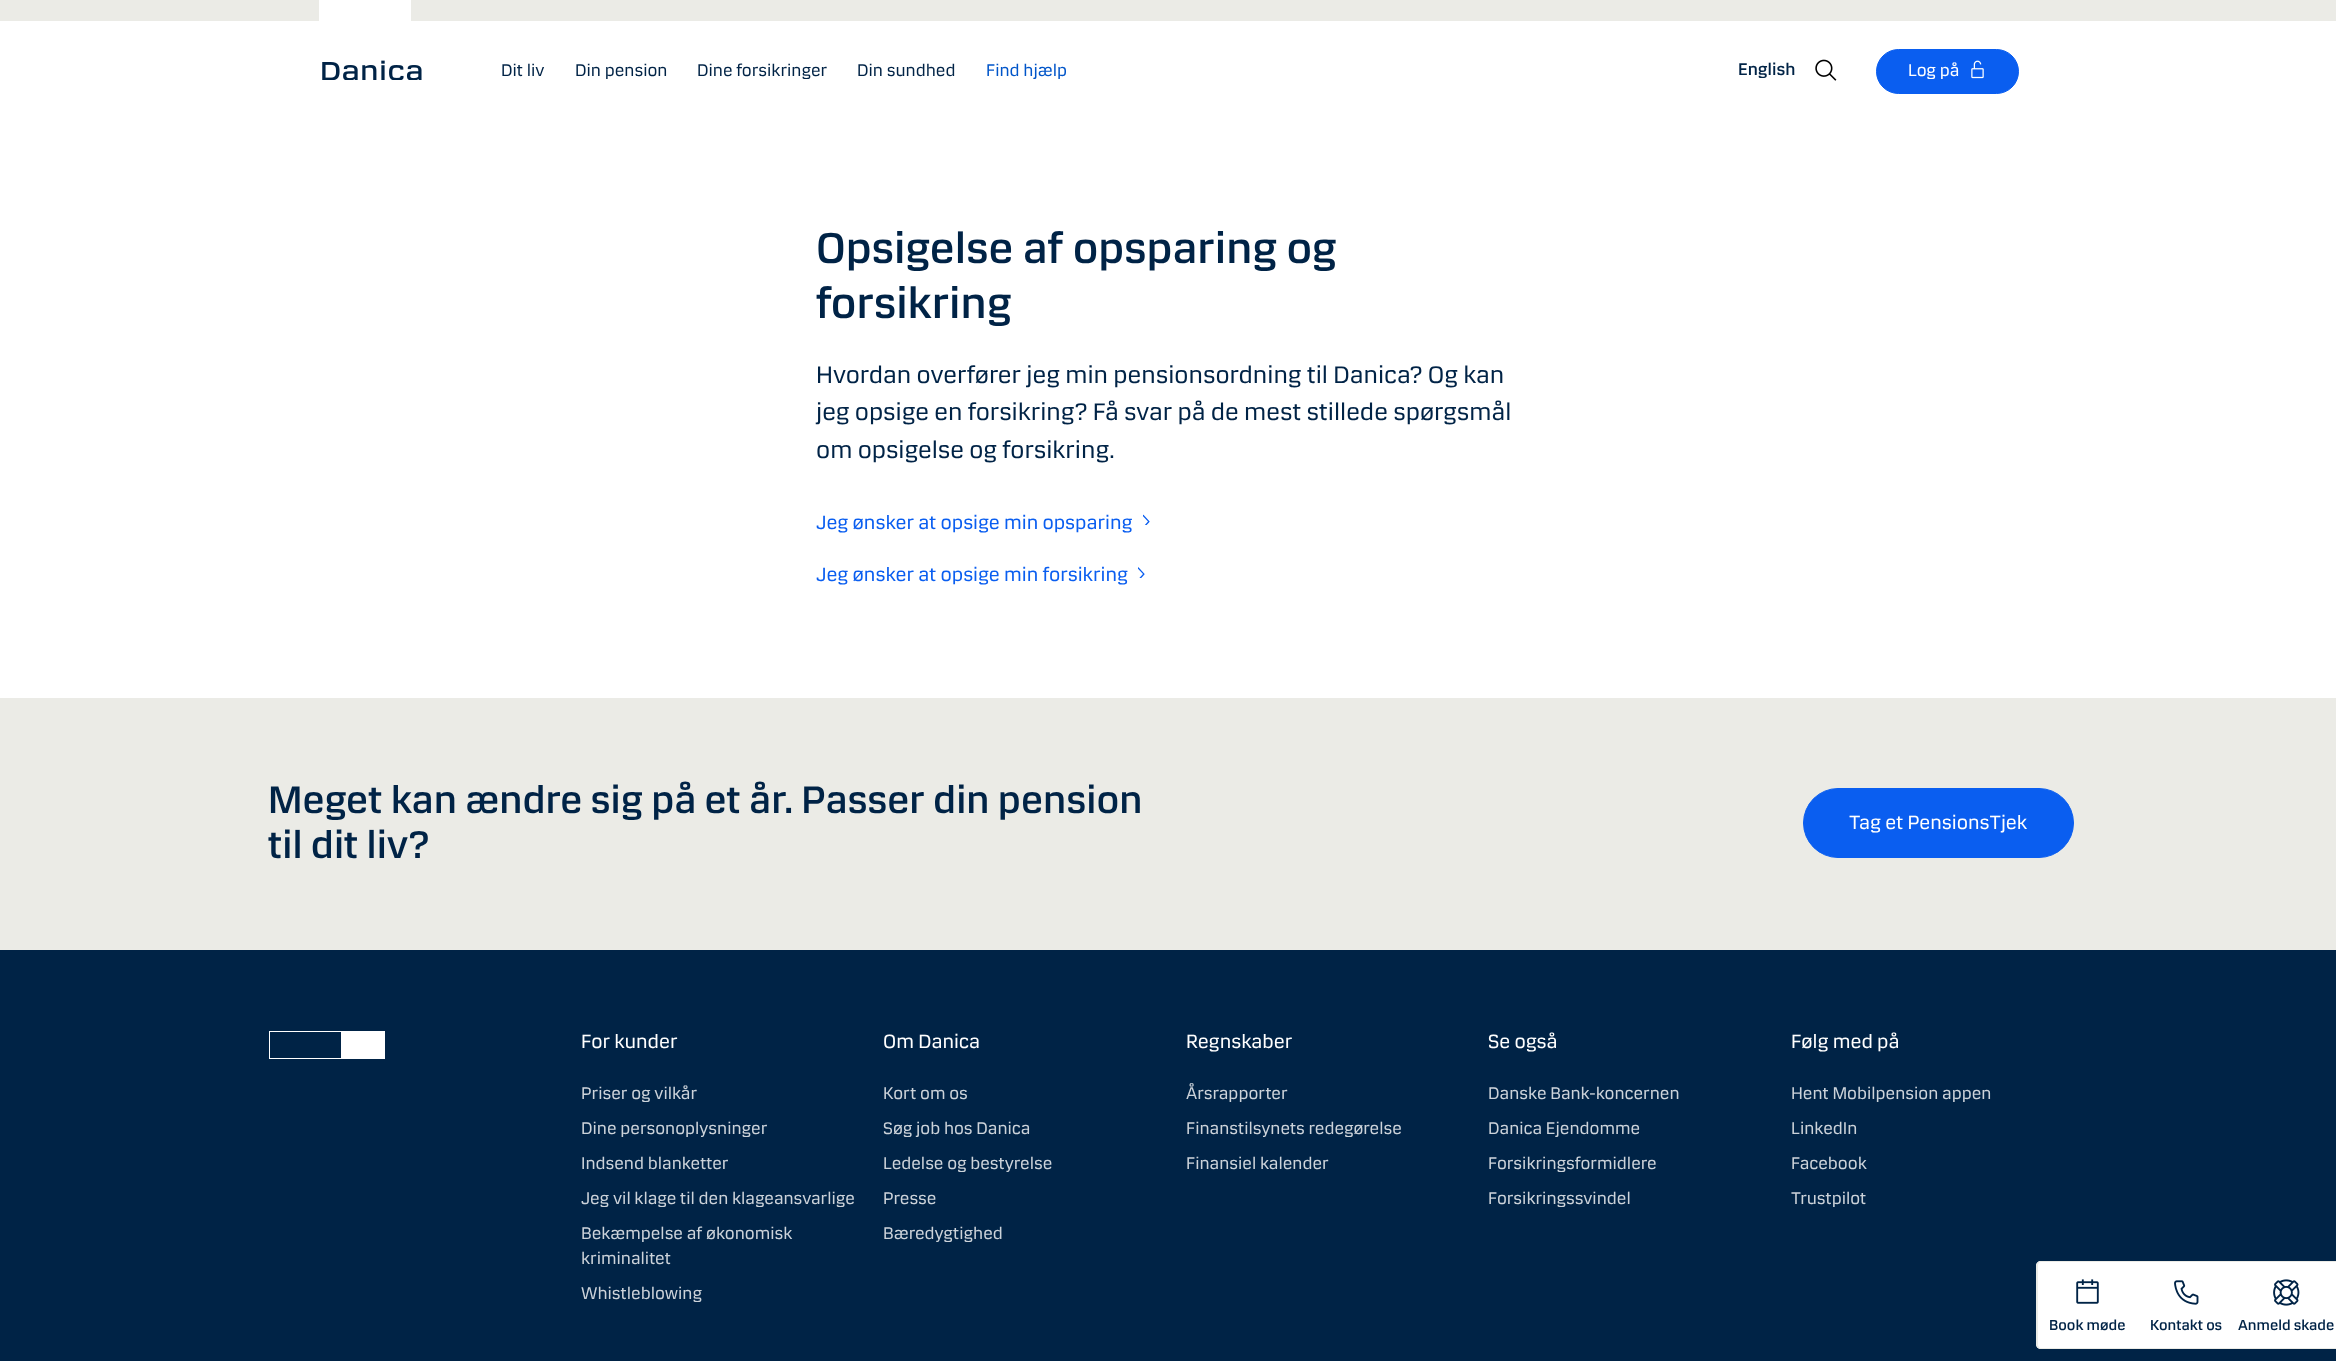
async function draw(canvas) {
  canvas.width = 2336;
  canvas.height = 1361;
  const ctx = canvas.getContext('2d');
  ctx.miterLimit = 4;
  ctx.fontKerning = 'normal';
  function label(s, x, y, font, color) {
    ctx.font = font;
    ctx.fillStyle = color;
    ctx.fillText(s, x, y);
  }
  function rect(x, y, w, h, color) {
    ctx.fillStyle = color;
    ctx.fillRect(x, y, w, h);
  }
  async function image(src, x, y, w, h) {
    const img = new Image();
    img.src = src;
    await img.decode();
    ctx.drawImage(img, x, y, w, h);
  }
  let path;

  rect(0, 0, 2336, 1361, '#fff');
  rect(0, 0, 2336, 21, '#ebebe6');
  rect(319, 0, 92, 21, '#fff');
  await image('assets/img1.png', 322, 60, 100, 20);
  label('Dit liv', 501, 76, '17.5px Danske', '#002346');
  label('Din pension', 575, 76, '17.5px Danske', '#002346');
  label('Dine forsikringer', 697, 76, '17.5px Danske', '#002346');
  label('Din sundhed', 857, 76, '17.5px Danske', '#002346');
  label('Find hjælp', 986, 76, '17.5px Danske', '#0055c9');
  label('English', 1738, 75, '500 17.5px Danske', '#002346');
  await image('assets/img2.png', 1815, 59, 22, 22);
  ctx.fillStyle = '#0a5ef0';
  ctx.beginPath();
  ctx.roundRect(1876.5, 49.5, 142, 44, 22);
  ctx.fill();
  ctx.strokeStyle = '#0a5ef0';
  ctx.stroke();
  label('Log på', 1908, 76, '17.5px Danske', '#fff');
  await image('assets/img3.png', 1971, 60, 13, 19);
  label('Opsigelse af opsparing og', 816, 263, '500 45px Danske', '#002346');
  label('forsikring', 816, 318, '500 45px Danske', '#002346');
  label('Hvordan overfører jeg min pensionsordning til Danica? Og kan', 816, 383, '25px Danske', '#002346');
  label('jeg opsige en forsikring? Få svar på de mest stillede spørgsmål', 816, 420, '25px Danske', '#002346');
  label('om opsigelse og forsikring.', 816, 458, '25px Danske', '#002346');
  label('Jeg ønsker at opsige min opsparing', 816, 529, '20px Danske', '#0a5ef0');
  await image('assets/img4.png', 1143, 514, 7, 11);
  label('Jeg ønsker at opsige min forsikring', 816, 581, '20px Danske', '#0a5ef0');
  await image('assets/img5.png', 1138, 567, 7, 11);
  rect(0, 698, 2336, 252, '#ebebe6');
  label('Meget kan ændre sig på et år. Passer din pension', 268, 813, '500 40px Danske', '#002346');
  label('til dit liv?', 268, 858, '500 40px Danske', '#002346');
  ctx.fillStyle = '#0a5ef0';
  ctx.beginPath();
  ctx.roundRect(1803.5, 788.5, 270, 69, 34.5);
  ctx.fill();
  ctx.stroke();
  label('Tag et PensionsTjek', 1849, 829, '20px Danske', '#fff');
  rect(0, 950, 2336, 411, '#002346');
  rect(269, 1031, 116, 28, '#fff');
  rect(270, 1032, 71, 26, '#002346');
  label('For kunder', 581, 1048, '20px Danske', '#fff');
  label('Priser og vilkår', 581, 1099, '17.5px Danske', '#ccd3da');
  label('Dine personoplysninger', 581, 1134, '17.5px Danske', '#ccd3da');
  label('Indsend blanketter', 581, 1169, '17.5px Danske', '#ccd3da');
  label('Jeg vil klage til den klageansvarlige', 581, 1204, '17.5px Danske', '#ccd3da');
  label('Bekæmpelse af økonomisk', 581, 1239, '17.5px Danske', '#ccd3da');
  label('kriminalitet', 581, 1264, '17.5px Danske', '#ccd3da');
  label('Whistleblowing', 581, 1299, '17.5px Danske', '#ccd3da');
  label('Om Danica', 883, 1048, '20px Danske', '#fff');
  label('Kort om os', 883, 1099, '17.5px Danske', '#ccd3da');
  label('Søg job hos Danica', 883, 1134, '17.5px Danske', '#ccd3da');
  label('Ledelse og bestyrelse', 883, 1169, '17.5px Danske', '#ccd3da');
  label('Presse', 883, 1204, '17.5px Danske', '#ccd3da');
  label('Bæredygtighed', 883, 1239, '17.5px Danske', '#ccd3da');
  label('Regnskaber', 1186, 1048, '20px Danske', '#fff');
  label('Årsrapporter', 1186, 1099, '17.5px Danske', '#ccd3da');
  label('Finanstilsynets redegørelse', 1186, 1134, '17.5px Danske', '#ccd3da');
  label('Finansiel kalender', 1186, 1169, '17.5px Danske', '#ccd3da');
  label('Se også', 1488, 1048, '20px Danske', '#fff');
  label('Danske Bank-koncernen', 1488, 1099, '17.5px Danske', '#ccd3da');
  label('Danica Ejendomme', 1488, 1134, '17.5px Danske', '#ccd3da');
  label('Forsikringsformidlere', 1488, 1169, '17.5px Danske', '#ccd3da');
  label('Forsikringssvindel', 1488, 1204, '17.5px Danske', '#ccd3da');
  label('Følg med på', 1791, 1048, '20px Danske', '#fff');
  label('Hent Mobilpension appen', 1791, 1099, '17.5px Danske', '#ccd3da');
  label('LinkedIn', 1791, 1134, '17.5px Danske', '#ccd3da');
  label('Facebook', 1791, 1169, '17.5px Danske', '#ccd3da');
  label('Trustpilot', 1791, 1204, '17.5px Danske', '#ccd3da');
  ctx.fillStyle = '#fff';
  ctx.beginPath();
  ctx.roundRect(2036, 1261, 100, 88, [5, 0, 0, 5]);
  ctx.fill();
  ctx.fillStyle = '#ebebe6';
  path = new Path2D('M2041 1261H2136V1349H2041C2038 1349 2036 1347 2036 1344V1266C2036 1263 2038 1261 2041 1261ZM2041 1262H2136V1348H2041C2039 1348 2038 1346 2038 1344V1266C2038 1264 2039 1262 2041 1262Z');
  ctx.fill(path, 'evenodd');
  await image('assets/img6.png', 2076, 1279, 23, 25);
  label('Book møde', 2049, 1330, '500 15px Danske', '#002346');
  rect(2136, 1262, 200, 86, '#fff');
  rect(2136, 1261, 200, 1, '#ebebe6');
  rect(2136, 1348, 200, 1, '#ebebe6');
  await image('assets/img7.png', 2174, 1280, 25, 25);
  label('Kontakt os', 2150, 1330, '500 15px Danske', '#002346');
  await image('assets/img8.png', 2273, 1279, 27, 27);
  label('Anmeld skade', 2238, 1330, '500 15px Danske', '#002346');
}

draw(document.querySelector('canvas'));
